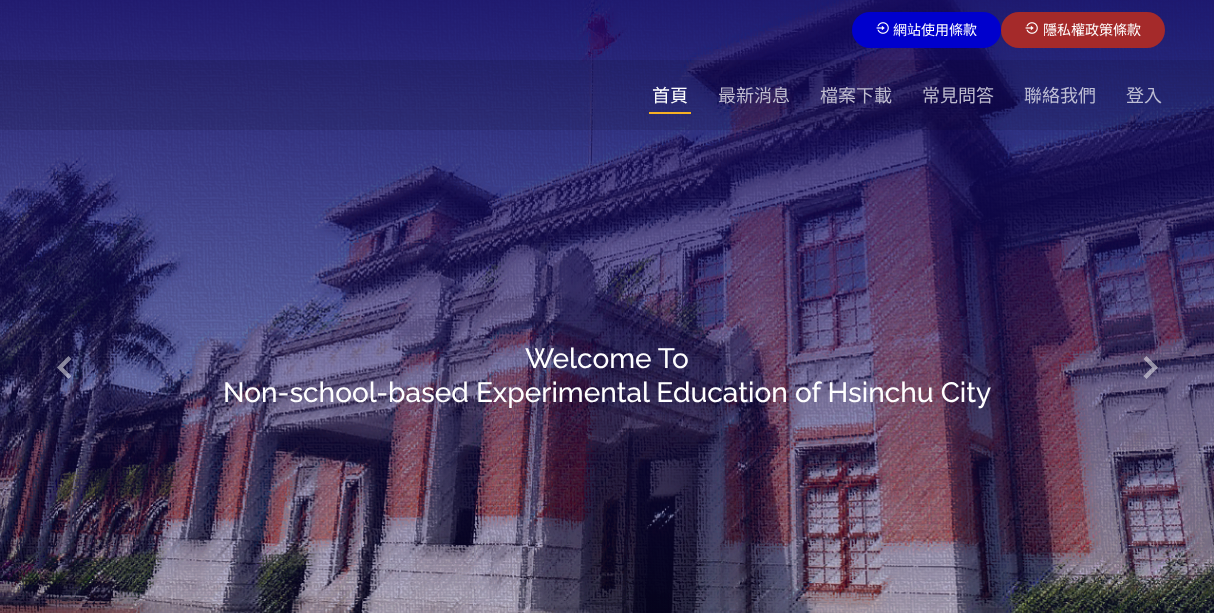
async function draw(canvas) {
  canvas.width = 1214;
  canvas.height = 613;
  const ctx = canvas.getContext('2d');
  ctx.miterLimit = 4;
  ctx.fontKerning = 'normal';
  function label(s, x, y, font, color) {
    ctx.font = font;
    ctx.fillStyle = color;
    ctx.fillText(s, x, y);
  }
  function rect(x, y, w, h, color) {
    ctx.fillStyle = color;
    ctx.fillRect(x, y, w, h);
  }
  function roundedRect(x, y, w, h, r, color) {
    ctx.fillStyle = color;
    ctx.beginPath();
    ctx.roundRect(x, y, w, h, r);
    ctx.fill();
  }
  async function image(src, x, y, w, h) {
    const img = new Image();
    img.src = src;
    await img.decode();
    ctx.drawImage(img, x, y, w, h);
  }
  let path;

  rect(0, 0, 1214, 613, '#fff');
  await image('assets/img3.png', 0, 0, 1214, 613);
  roundedRect(852, 12, 149, 36, 18, '#0000cd');
  await image('assets/img1.png', 876, 22, 13, 12);
  label('網站使用條款', 893, 35, '14px Noto Sans CJK TC', '#fff');
  roundedRect(1001, 12, 164, 36, 18, '#a52a2a');
  await image('assets/img2.png', 1025, 22, 13, 12);
  label('隱私權政策條款', 1043, 35, '14px Noto Sans CJK TC', '#fff');
  rect(0, 60, 1214, 70, '#0000001a');
  label('首頁', 652, 102, '18px Noto Sans CJK TC', '#fff');
  rect(649, 112, 42, 2, '#f6b024');
  label('最新消息', 718, 102, '18px Noto Sans CJK TC', '#bebbce');
  label('檔案下載', 820, 102, '18px Noto Sans CJK TC', '#bebbce');
  label('常見問答', 922, 102, '18px Noto Sans CJK TC', '#bebbce');
  label('聯絡我們', 1024, 102, '18px Noto Sans CJK TC', '#bebed4');
  label('登入', 1126, 102, '18px Noto Sans CJK TC', '#bebed4');
  ctx.fillStyle = '#ffffff80';
  path = new Path2D('M68.5 356L57 367.5L68.5 379L71.5 376L63 367.5L71.5 359Z');
  ctx.fill(path);
  label('Welcome To', 525, 368, '500 28px Raleway', '#fff');
  label('Non-school-based Experimental Education of Hsinchu City', 223, 402, '500 28px Raleway', '#fff');
  ctx.fillStyle = '#ffffff80';
  path = new Path2D('M1146.5 379L1158 367.5L1146.5 356L1143.5 359L1152 367.5L1143.5 376Z');
  ctx.fill(path);
}

draw(document.querySelector('canvas'));
